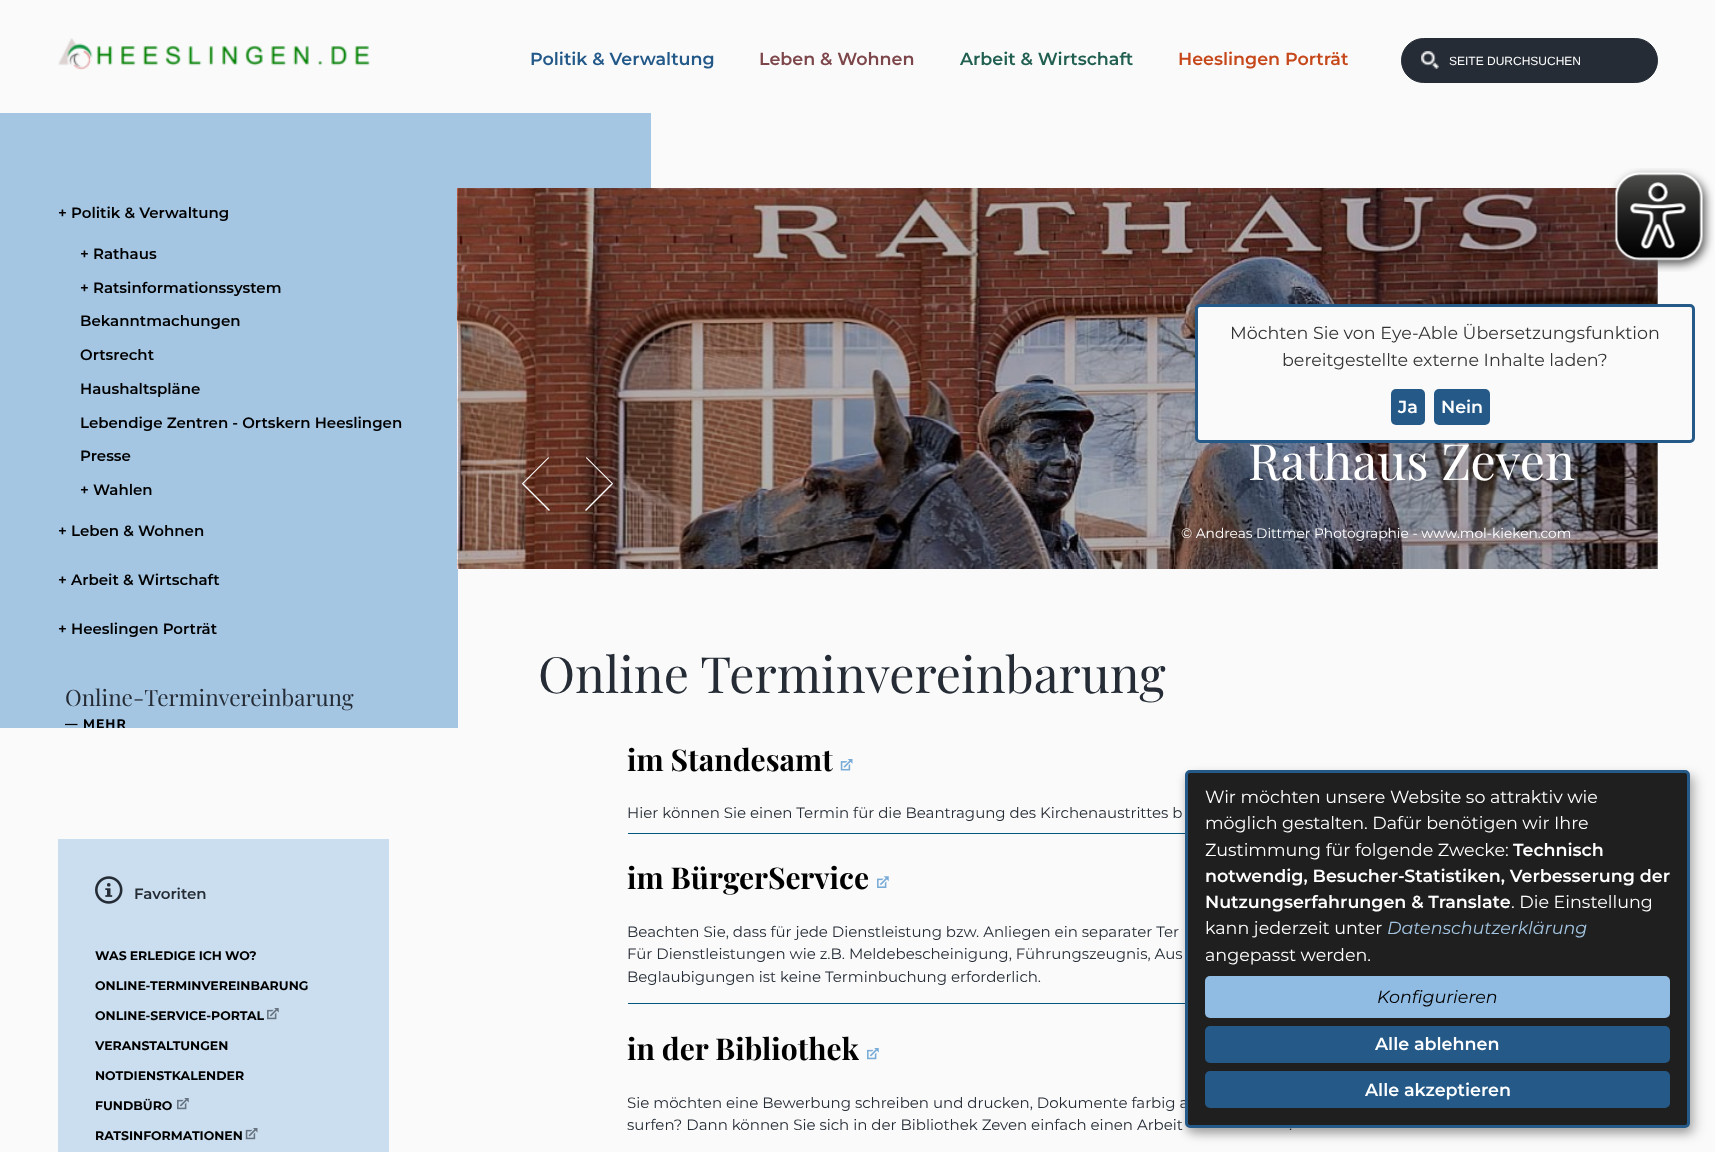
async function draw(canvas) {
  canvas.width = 1715;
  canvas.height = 1152;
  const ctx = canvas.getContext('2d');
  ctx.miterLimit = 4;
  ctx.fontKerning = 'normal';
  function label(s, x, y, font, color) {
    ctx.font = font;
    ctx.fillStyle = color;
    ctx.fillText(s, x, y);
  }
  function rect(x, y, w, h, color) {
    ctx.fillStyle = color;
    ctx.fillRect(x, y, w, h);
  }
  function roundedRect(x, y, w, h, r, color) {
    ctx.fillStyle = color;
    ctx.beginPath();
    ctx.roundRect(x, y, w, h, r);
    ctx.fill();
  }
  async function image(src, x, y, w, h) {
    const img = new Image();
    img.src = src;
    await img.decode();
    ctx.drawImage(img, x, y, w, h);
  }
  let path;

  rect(0, 0, 1715, 1152, '#fafafa');
  rect(0, 113, 651, 615, '#a4c6e3');
  label('+ Politik & Verwaltung', 58, 218, '600 15px Montserrat', '#000');
  label('+ Rathaus', 80, 259, '600 15px Montserrat', '#000');
  label('+ Ratsinformationssystem', 80, 293, '600 15px Montserrat', '#000');
  label('Bekanntmachungen', 80, 326, '600 15px Montserrat', '#000');
  label('Ortsrecht', 80, 360, '600 15px Montserrat', '#000');
  label('Haushaltspläne', 80, 394, '600 15px Montserrat', '#000');
  label('Lebendige Zentren - Ortskern Heeslingen', 80, 428, '600 15px Montserrat', '#000');
  label('Presse', 80, 461, '600 15px Montserrat', '#000');
  label('+ Wahlen', 80, 495, '600 15px Montserrat', '#000');
  label('+ Leben & Wohnen', 58, 536, '600 15px Montserrat', '#000');
  label('+ Arbeit & Wirtschaft', 58, 585, '600 15px Montserrat', '#000');
  label('+ Heeslingen Porträt', 58, 634, '600 15px Montserrat', '#000');
  label('Online-Terminvereinbarung', 65, 706, '22.5px Playfair Display', '#252c35');
  ctx.letterSpacing = '1px';
  label('—', 65, 728, 'bold 12.5px Montserrat', '#000');
  label('MEHR', 83, 728, 'bold 12.5px Montserrat', '#000');
  rect(58, 839, 331, 313, '#cadeef');
  await image('assets/img1.png', 95, 876, 28, 28);
  ctx.letterSpacing = '0px';
  label('Favoriten', 134, 899, '600 15px Montserrat', '#252c35');
  ctx.wordSpacing = '-0.5px';
  label('WAS ERLEDIGE ICH WO?', 95, 960, 'bold 12.5px Montserrat', '#000');
  ctx.wordSpacing = '0px';
  label('ONLINE-TERMINVEREINBARUNG', 95, 990, 'bold 12.5px Montserrat', '#000');
  label('ONLINE-SERVICE-PORTAL', 95, 1020, 'bold 12.5px Montserrat', '#000');
  await image('assets/img2.png', 267, 1008, 12, 12);
  label('VERANSTALTUNGEN', 95, 1050, 'bold 12.5px Montserrat', '#000');
  label('NOTDIENSTKALENDER', 95, 1080, 'bold 12.5px Montserrat', '#000');
  label('FUNDBÜRO', 95, 1110, 'bold 12.5px Montserrat', '#000');
  await image('assets/img2.png', 177, 1098, 12, 12);
  label('RATSINFORMATIONEN', 95, 1140, 'bold 12.5px Montserrat', '#000');
  await image('assets/img3.png', 245, 1128, 13, 12);
  await image('assets/img4.png', 58, 38, 312, 32);
  label('Politik & Verwaltung', 530, 65, '600 17.5px Montserrat', '#235989');
  label('Leben & Wohnen', 759, 65, '600 17.5px Montserrat', '#7c464a');
  label('Arbeit & Wirtschaft', 960, 65, '600 17.5px Montserrat', '#215f51');
  label('Heeslingen Porträt', 1178, 65, '600 17.5px Montserrat', '#c6481a');
  ctx.fillStyle = '#252c35';
  ctx.beginPath();
  ctx.roundRect(1401.5, 38.5, 256, 44, 22);
  ctx.fill();
  ctx.strokeStyle = '#252c35';
  ctx.stroke();
  await image('assets/img5.png', 1421, 51, 18, 18);
  label('SEITE DURCHSUCHEN', 1449, 65, '12px Liberation Sans', '#fff');
  rect(1656, 259, 2, 310, '#b3b3b3');
  await image('assets/img6.png', 457, 188, 1201, 381);
  ctx.fillStyle = '#fff';
  path = new Path2D('M522 483.5L548.5 457L549 458L522.5 484.5Z');
  ctx.fill(path);
  path = new Path2D('M523.5 483.5L550 510L549 511L522.5 484.5Z');
  ctx.fill(path);
  path = new Path2D('M586.5 457L613 483.5L612.5 484.5L586 458Z');
  ctx.fill(path);
  path = new Path2D('M612.5 484.5L586 511L585 510L611.5 483.5Z');
  ctx.fill(path);
  label('Rathaus Zeven', 1248, 480, '50px Playfair Display', '#fff');
  label('© Andreas Dittmer Photographie - www.mol-kieken.com', 1181, 538, '13.75px Montserrat', '#fff');
  rect(458, 569, 193, 159, '#fafafa');
  label('Online Terminvereinbarung', 538, 693, '50px Playfair Display', '#252c35');
  label('im Standesamt', 627, 771, 'bold 30px Playfair Display', '#000');
  await image('assets/img7.png', 840, 759, 13, 12);
  label('Hier können Sie einen Termin für die Beantragung des Kirchenaustrittes b', 627, 818, '15px Montserrat', '#252c35');
  rect(628, 833, 557, 1, '#00587e');
  label('im BürgerService', 627, 889, 'bold 30px Playfair Display', '#000');
  await image('assets/img8.png', 877, 876, 12, 12);
  label('Beachten Sie, dass für jede Dienstleistung bzw. Anliegen ein separater Ter', 627, 937, '15px Montserrat', '#252c35');
  label('Für Dienstleistungen wie z.B. Meldebescheinigung, Führungszeugnis, Aus', 627, 959, '15px Montserrat', '#252c35');
  label('Beglaubigungen ist keine Terminbuchung erforderlich.', 627, 982, '15px Montserrat', '#252c35');
  rect(628, 1003, 557, 1, '#00587e');
  label('in der Bibliothek', 627, 1060, 'bold 30px Playfair Display', '#000');
  await image('assets/img9.png', 867, 1048, 12, 12);
  label('Sie möchten eine Bewerbung schreiben und drucken, Dokumente farbig a', 627, 1108, '15px Montserrat', '#252c35');
  label('surfen? Dann können Sie sich in der Bibliothek Zeven einfach einen Arbeit', 627, 1130, '15px Montserrat', '#252c35');
  label('.', 1289, 1130, '15px Montserrat', '#252c35');
  await image('assets/img10.png', 1611, 168, 103, 104);
  ctx.fillStyle = '#fafafa';
  ctx.beginPath();
  ctx.roundRect(1196.5, 305.5, 497, 136, 3.5);
  ctx.fill();
  ctx.strokeStyle = '#245988';
  ctx.lineWidth = 3;
  ctx.stroke();
  label('Möchten Sie von Eye-Able Übersetzungsfunktion', 1230, 339, '17.5px Montserrat', '#333');
  label('bereitgestellte externe Inhalte laden?', 1282, 366, '17.5px Montserrat', '#333');
  roundedRect(1391, 389, 34, 36, 5, '#245988');
  label('Ja', 1398, 413, '600 17.5px Montserrat', '#fff');
  roundedRect(1434, 389, 56, 36, 5, '#245988');
  label('Nein', 1441, 413, '600 17.5px Montserrat', '#fff');
  ctx.fillStyle = '#00000030';
  ctx.filter = 'blur(6px)';
  ctx.beginPath();
  ctx.roundRect(1191, 776, 505, 358, 5);
  ctx.fill();
  ctx.filter = 'none';
  ctx.fillStyle = '#00000033';
  ctx.filter = 'blur(4px)';
  ctx.beginPath();
  ctx.roundRect(1185, 775, 505, 358, 5);
  ctx.fill();
  ctx.filter = 'none';
  ctx.fillStyle = '#1f1f1f';
  ctx.beginPath();
  ctx.roundRect(1186.5, 771.5, 502, 355, 3.5);
  ctx.fill();
  ctx.stroke();
  label('Wir möchten unsere Website so attraktiv wie', 1205, 803, '17.5px Montserrat', '#fff');
  label('möglich gestalten. Dafür benötigen wir Ihre', 1205, 829, '17.5px Montserrat', '#fff');
  label('Zustimmung für folgende Zwecke:', 1205, 856, '17.5px Montserrat', '#fff');
  label('Technisch', 1513, 856, '600 17.5px Montserrat', '#fff');
  label('notwendig, Besucher-Statistiken, Verbesserung der', 1205, 882, '600 17.5px Montserrat', '#fff');
  label('Nutzungserfahrungen & Translate', 1205, 908, '600 17.5px Montserrat', '#fff');
  label('. Die Einstellung', 1511, 908, '17.5px Montserrat', '#fff');
  label('kann jederzeit unter', 1205, 934, '17.5px Montserrat', '#fff');
  label('Datenschutzerklärung', 1387, 934, 'italic 17.5px Montserrat', '#a4c6e3');
  label('angepasst werden.', 1205, 961, '17.5px Montserrat', '#fff');
  roundedRect(1205, 976, 465, 42, 5, '#90bce3');
  label('Konfigurieren', 1377, 1003, 'italic 17.5px Montserrat', '#000');
  roundedRect(1205, 1026, 465, 37, 5, '#245988');
  label('Alle ablehnen', 1375, 1050, '600 17.5px Montserrat', '#fff');
  roundedRect(1205, 1071, 465, 37, 5, '#245988');
  label('Alle akzeptieren', 1365, 1096, '600 17.5px Montserrat', '#fff');
}

draw(document.querySelector('canvas'));
